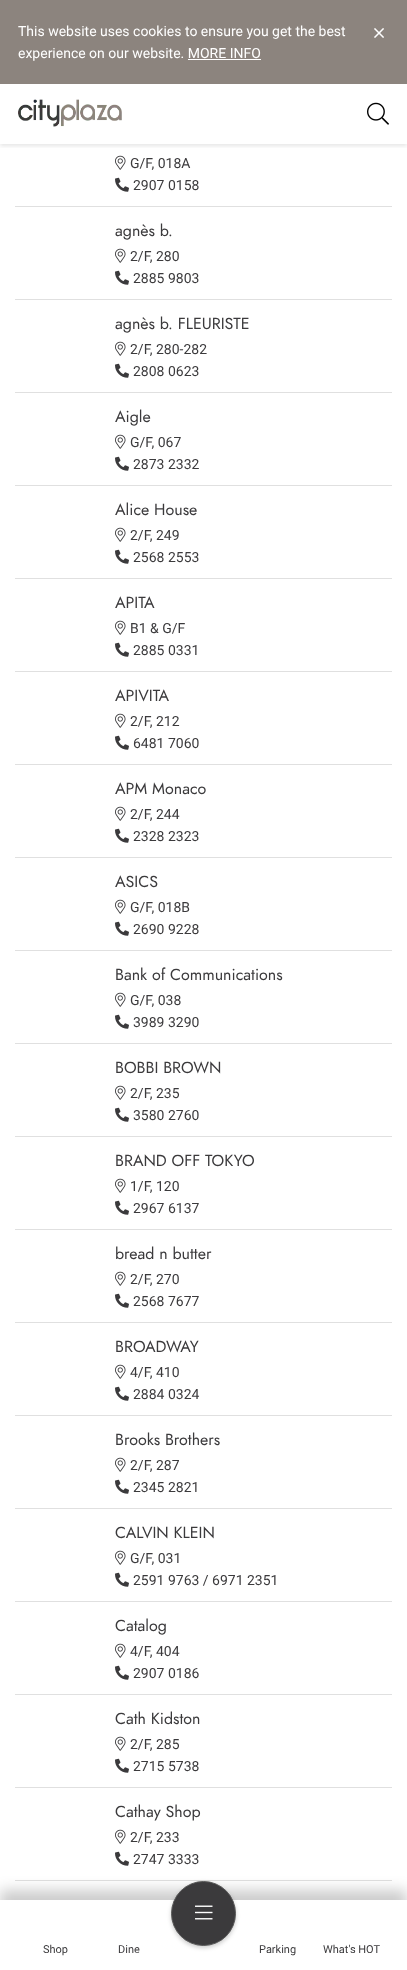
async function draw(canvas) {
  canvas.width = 407;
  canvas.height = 1970;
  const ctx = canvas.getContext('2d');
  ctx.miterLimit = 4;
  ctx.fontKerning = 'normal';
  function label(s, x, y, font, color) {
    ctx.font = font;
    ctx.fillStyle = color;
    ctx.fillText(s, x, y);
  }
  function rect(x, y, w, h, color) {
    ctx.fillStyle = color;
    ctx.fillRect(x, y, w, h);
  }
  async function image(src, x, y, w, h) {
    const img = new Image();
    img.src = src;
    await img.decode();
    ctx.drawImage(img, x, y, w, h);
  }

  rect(0, 0, 407, 1970, '#fff');
  rect(0, 0, 407, 84, '#8c847e');
  label('This website uses cookies to ensure you get the best', 18, 36, '14px Roboto', '#fff');
  label('experience on our website. MORE INFO', 18, 58, '14px Roboto', '#fff');
  rect(188, 59, 73, 1, '#fff');
  await image('assets/img1.png', 374, 28, 10, 10);
  ctx.save();
  ctx.beginPath();
  ctx.rect(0, 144, 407, 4);
  ctx.clip();
  ctx.fillStyle = '#0000001a';
  ctx.filter = 'blur(2px)';
  ctx.beginPath();
  ctx.rect(0, 86, 407, 60);
  ctx.fill();
  ctx.filter = 'none';
  ctx.restore();
  await image('assets/img2.png', 18, 99, 104, 28);
  await image('assets/img3.png', 367, 102, 22, 23);
  rect(15, 206, 377, 1, '#e0e0e0');
  await image('assets/img4.png', 115, 155, 11, 15);
  label('G/F, 018A', 130, 168, '14px Roboto', '#3b3a3c');
  await image('assets/img5.png', 115, 177, 14, 15);
  label('2907 0158', 133, 190, '14px Roboto', '#3b3a3c');
  rect(15, 299, 377, 1, '#e0e0e0');
  label('agnès b.', 115, 236, '16px Jost', '#3b3a3c');
  await image('assets/img4.png', 115, 248, 11, 15);
  label('2/F, 280', 130, 261, '14px Roboto', '#3b3a3c');
  await image('assets/img5.png', 115, 270, 14, 15);
  label('2885 9803', 133, 283, '14px Roboto', '#3b3a3c');
  rect(15, 392, 377, 1, '#e0e0e0');
  label('agnès b. FLEURISTE', 115, 329, '16px Jost', '#3b3a3c');
  await image('assets/img4.png', 115, 341, 11, 15);
  label('2/F, 280-282', 130, 354, '14px Roboto', '#3b3a3c');
  await image('assets/img5.png', 115, 363, 14, 15);
  label('2808 0623', 133, 376, '14px Roboto', '#3b3a3c');
  rect(15, 485, 377, 1, '#e0e0e0');
  label('Aigle', 115, 422, '16px Jost', '#3b3a3c');
  await image('assets/img4.png', 115, 434, 11, 15);
  label('G/F, 067', 130, 447, '14px Roboto', '#3b3a3c');
  await image('assets/img5.png', 115, 456, 14, 15);
  label('2873 2332', 133, 469, '14px Roboto', '#3b3a3c');
  rect(15, 578, 377, 1, '#e0e0e0');
  label('Alice House', 115, 515, '16px Jost', '#3b3a3c');
  await image('assets/img4.png', 115, 527, 11, 15);
  label('2/F, 249', 130, 540, '14px Roboto', '#3b3a3c');
  await image('assets/img5.png', 115, 549, 14, 15);
  label('2568 2553', 133, 562, '14px Roboto', '#3b3a3c');
  rect(15, 671, 377, 1, '#e0e0e0');
  label('APITA', 115, 608, '16px Jost', '#3b3a3c');
  await image('assets/img4.png', 115, 620, 11, 15);
  label('B1 & G/F', 130, 633, '14px Roboto', '#3b3a3c');
  await image('assets/img5.png', 115, 642, 14, 15);
  label('2885 0331', 133, 655, '14px Roboto', '#3b3a3c');
  rect(15, 764, 377, 1, '#e0e0e0');
  label('APIVITA', 115, 701, '16px Jost', '#3b3a3c');
  await image('assets/img4.png', 115, 713, 11, 15);
  label('2/F, 212', 130, 726, '14px Roboto', '#3b3a3c');
  await image('assets/img5.png', 115, 735, 14, 15);
  label('6481 7060', 133, 748, '14px Roboto', '#3b3a3c');
  rect(15, 857, 377, 1, '#e0e0e0');
  label('APM Monaco', 115, 794, '16px Jost', '#3b3a3c');
  await image('assets/img4.png', 115, 806, 11, 15);
  label('2/F, 244', 130, 819, '14px Roboto', '#3b3a3c');
  await image('assets/img5.png', 115, 828, 14, 15);
  label('2328 2323', 133, 841, '14px Roboto', '#3b3a3c');
  rect(15, 950, 377, 1, '#e0e0e0');
  label('ASICS', 115, 887, '16px Jost', '#3b3a3c');
  await image('assets/img4.png', 115, 899, 11, 15);
  label('G/F, 018B', 130, 912, '14px Roboto', '#3b3a3c');
  await image('assets/img5.png', 115, 921, 14, 15);
  label('2690 9228', 133, 934, '14px Roboto', '#3b3a3c');
  rect(15, 1043, 377, 1, '#e0e0e0');
  label('Bank of Communications', 115, 980, '16px Jost', '#3b3a3c');
  await image('assets/img4.png', 115, 992, 11, 15);
  label('G/F, 038', 130, 1005, '14px Roboto', '#3b3a3c');
  await image('assets/img5.png', 115, 1014, 14, 15);
  label('3989 3290', 133, 1027, '14px Roboto', '#3b3a3c');
  rect(15, 1136, 377, 1, '#e0e0e0');
  label('BOBBI BROWN', 115, 1073, '16px Jost', '#3b3a3c');
  await image('assets/img4.png', 115, 1085, 11, 15);
  label('2/F, 235', 130, 1098, '14px Roboto', '#3b3a3c');
  await image('assets/img5.png', 115, 1107, 14, 15);
  label('3580 2760', 133, 1120, '14px Roboto', '#3b3a3c');
  rect(15, 1229, 377, 1, '#e0e0e0');
  label('BRAND OFF TOKYO', 115, 1166, '16px Jost', '#3b3a3c');
  await image('assets/img4.png', 115, 1178, 11, 15);
  label('1/F, 120', 130, 1191, '14px Roboto', '#3b3a3c');
  await image('assets/img5.png', 115, 1200, 14, 15);
  label('2967 6137', 133, 1213, '14px Roboto', '#3b3a3c');
  rect(15, 1322, 377, 1, '#e0e0e0');
  label('bread n butter', 115, 1259, '16px Jost', '#3b3a3c');
  await image('assets/img4.png', 115, 1271, 11, 15);
  label('2/F, 270', 130, 1284, '14px Roboto', '#3b3a3c');
  await image('assets/img5.png', 115, 1293, 14, 15);
  label('2568 7677', 133, 1306, '14px Roboto', '#3b3a3c');
  rect(15, 1415, 377, 1, '#e0e0e0');
  label('BROADWAY', 115, 1352, '16px Jost', '#3b3a3c');
  await image('assets/img4.png', 115, 1364, 11, 15);
  label('4/F, 410', 130, 1377, '14px Roboto', '#3b3a3c');
  await image('assets/img5.png', 115, 1386, 14, 15);
  label('2884 0324', 133, 1399, '14px Roboto', '#3b3a3c');
  rect(15, 1508, 377, 1, '#e0e0e0');
  label('Brooks Brothers', 115, 1445, '16px Jost', '#3b3a3c');
  await image('assets/img4.png', 115, 1457, 11, 15);
  label('2/F, 287', 130, 1470, '14px Roboto', '#3b3a3c');
  await image('assets/img5.png', 115, 1479, 14, 15);
  label('2345 2821', 133, 1492, '14px Roboto', '#3b3a3c');
  rect(15, 1601, 377, 1, '#e0e0e0');
  label('CALVIN KLEIN', 115, 1538, '16px Jost', '#3b3a3c');
  await image('assets/img4.png', 115, 1550, 11, 15);
  label('G/F, 031', 130, 1563, '14px Roboto', '#3b3a3c');
  await image('assets/img5.png', 115, 1572, 14, 15);
  label('2591 9763 / 6971 2351', 133, 1585, '14px Roboto', '#3b3a3c');
  rect(15, 1694, 377, 1, '#e0e0e0');
  label('Catalog', 115, 1631, '16px Jost', '#3b3a3c');
  await image('assets/img4.png', 115, 1643, 11, 15);
  label('4/F, 404', 130, 1656, '14px Roboto', '#3b3a3c');
  await image('assets/img5.png', 115, 1665, 14, 15);
  label('2907 0186', 133, 1678, '14px Roboto', '#3b3a3c');
  rect(15, 1787, 377, 1, '#e0e0e0');
  label('Cath Kidston', 115, 1724, '16px Jost', '#3b3a3c');
  await image('assets/img4.png', 115, 1736, 11, 15);
  label('2/F, 285', 130, 1749, '14px Roboto', '#3b3a3c');
  await image('assets/img5.png', 115, 1758, 14, 15);
  label('2715 5738', 133, 1771, '14px Roboto', '#3b3a3c');
  rect(15, 1880, 377, 1, '#e0e0e0');
  label('Cathay Shop', 115, 1817, '16px Jost', '#3b3a3c');
  await image('assets/img4.png', 115, 1829, 11, 15);
  label('2/F, 233', 130, 1842, '14px Roboto', '#3b3a3c');
  await image('assets/img5.png', 115, 1851, 14, 15);
  label('2747 3333', 133, 1864, '14px Roboto', '#3b3a3c');
  ctx.fillStyle = '#00000033';
  ctx.filter = 'blur(7px)';
  ctx.beginPath();
  ctx.rect(0, 1890, 407, 70);
  ctx.fill();
  ctx.filter = 'none';
  rect(0, 1900, 407, 70, '#fff');
  label('Shop', 43, 1953, '11px Roboto', '#3b3a3c');
  label('Dine', 118, 1953, '11px Roboto', '#3b3a3c');
  ctx.fillStyle = '#00000033';
  ctx.filter = 'blur(2px)';
  ctx.beginPath();
  ctx.roundRect(171, 1883, 65, 65, 32.5);
  ctx.fill();
  ctx.filter = 'none';
  ctx.fillStyle = '#3b3a3c';
  ctx.beginPath();
  ctx.arc(203.5, 1913.5, 32, 0, 2 * Math.PI);
  ctx.fill();
  ctx.strokeStyle = '#595959';
  ctx.stroke();
  await image('assets/img6.png', 195, 1905, 18, 15);
  label('Parking', 259, 1953, '11px Roboto', '#3b3a3c');
  label('What\'s HOT', 323, 1953, '11px Roboto', '#3b3a3c');
}

draw(document.querySelector('canvas'));
